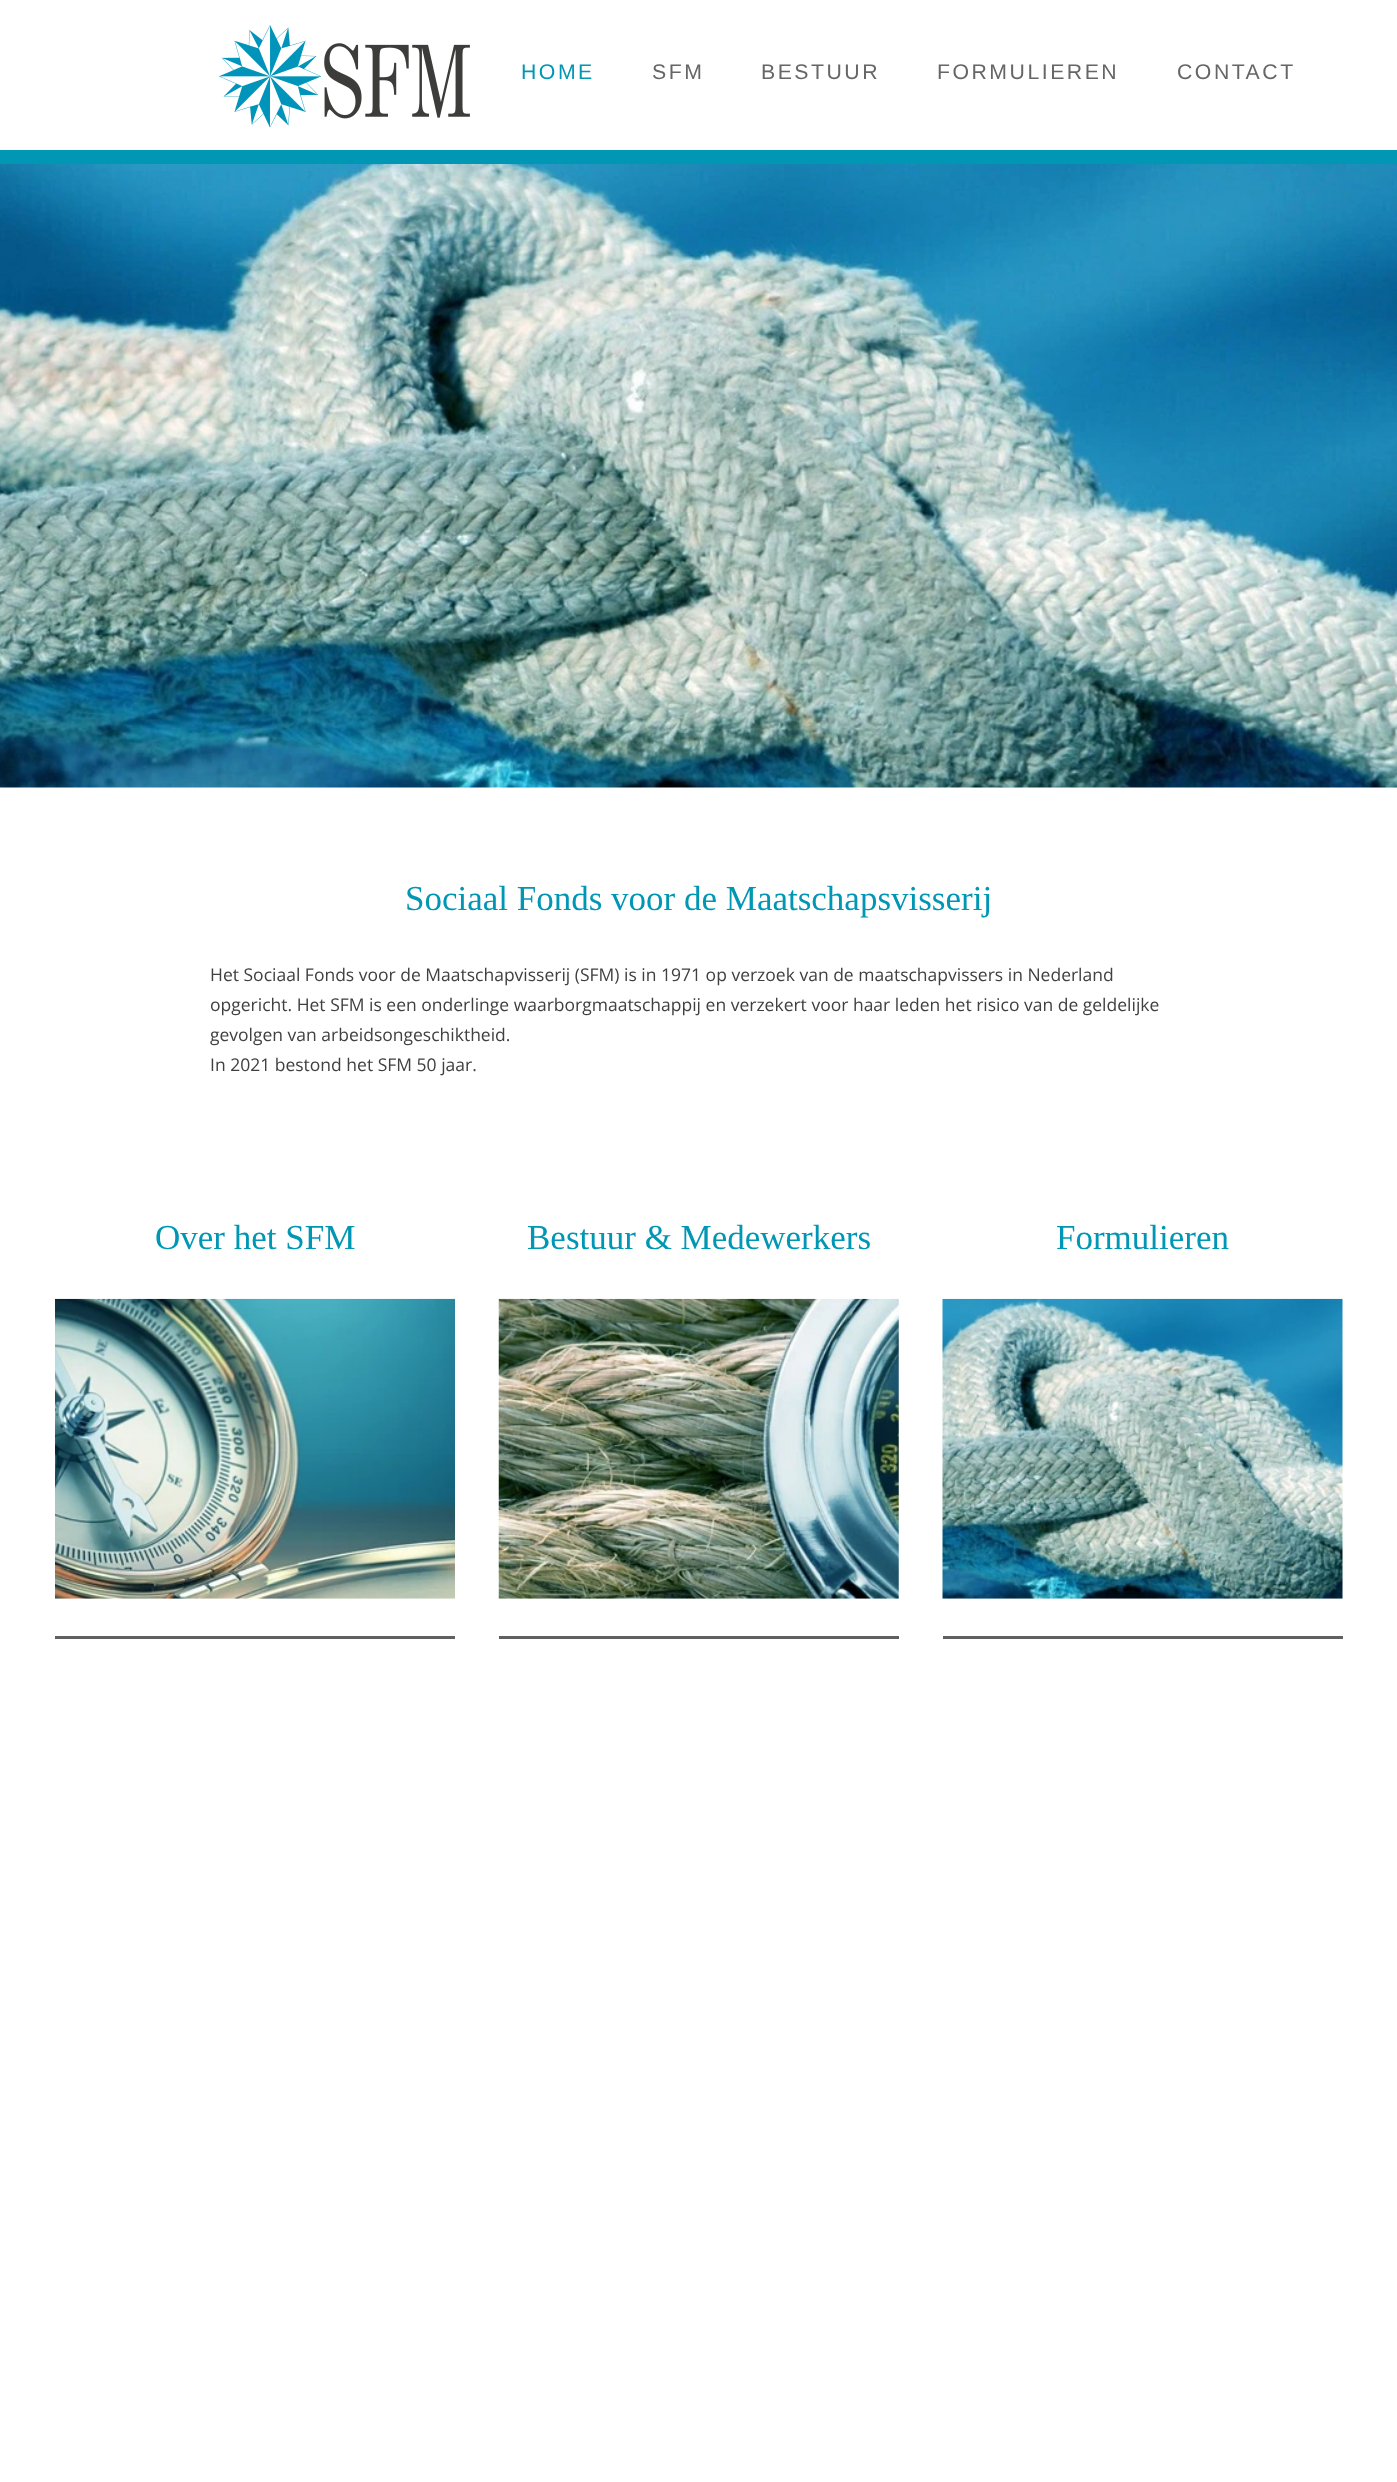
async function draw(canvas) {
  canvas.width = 1397;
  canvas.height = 2482;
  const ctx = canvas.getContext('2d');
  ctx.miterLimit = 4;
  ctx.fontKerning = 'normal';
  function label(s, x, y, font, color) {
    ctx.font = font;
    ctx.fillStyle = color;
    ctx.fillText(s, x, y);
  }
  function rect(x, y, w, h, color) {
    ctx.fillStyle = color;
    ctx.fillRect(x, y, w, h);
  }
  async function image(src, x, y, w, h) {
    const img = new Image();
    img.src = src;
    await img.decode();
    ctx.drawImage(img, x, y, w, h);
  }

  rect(0, 0, 1397, 2482, '#fff');
  await image('assets/img1.png', 219, 25, 251, 103);
  rect(0, 150, 1397, 14, '#0097b4');
  ctx.letterSpacing = '2.5px';
  label('HOME', 521, 79, '21.25px Liberation Sans', '#0097b4');
  label('SFM', 652, 79, '21.25px Liberation Sans', '#666');
  label('BESTUUR', 761, 79, '21.25px Liberation Sans', '#666');
  label('FORMULIEREN', 937, 79, '21.25px Liberation Sans', '#666');
  label('CONTACT', 1177, 79, '21.25px Liberation Sans', '#666');
  await image('assets/img2.png', 0, 164, 1397, 624);
  ctx.letterSpacing = '0px';
  label('Sociaal Fonds voor de Maatschapsvisserij', 405, 910, '35px Liberation Serif', '#0097b4');
  label('Het Sociaal Fonds voor de Maatschapvisserij (SFM) is in 1971 op verzoek van de maatschapvissers in Nederland', 210, 981, '17.5px Open Sans', '#404041');
  label('opgericht. Het SFM is een onderlinge waarborgmaatschappij en verzekert voor haar leden het risico van de geldelijke', 210, 1011, '17.5px Open Sans', '#404041');
  label('gevolgen van arbeidsongeschiktheid.', 210, 1041, '17.5px Open Sans', '#404041');
  label('In 2021 bestond het SFM 50 jaar.', 210, 1071, '17.5px Open Sans', '#404041');
  rect(55, 1636, 400, 3, '#606060');
  label('Over het SFM', 155, 1249, '35px Liberation Serif', '#0097b4');
  await image('assets/img3.png', 55, 1298, 400, 301);
  rect(499, 1636, 400, 3, '#606060');
  label('Bestuur & Medewerkers', 527, 1249, '35px Liberation Serif', '#0097b4');
  await image('assets/img4.png', 498, 1298, 401, 301);
  rect(943, 1636, 400, 3, '#606060');
  label('Formulieren', 1056, 1249, '35px Liberation Serif', '#0097b4');
  await image('assets/img5.png', 942, 1298, 401, 301);
}

draw(document.querySelector('canvas'));
